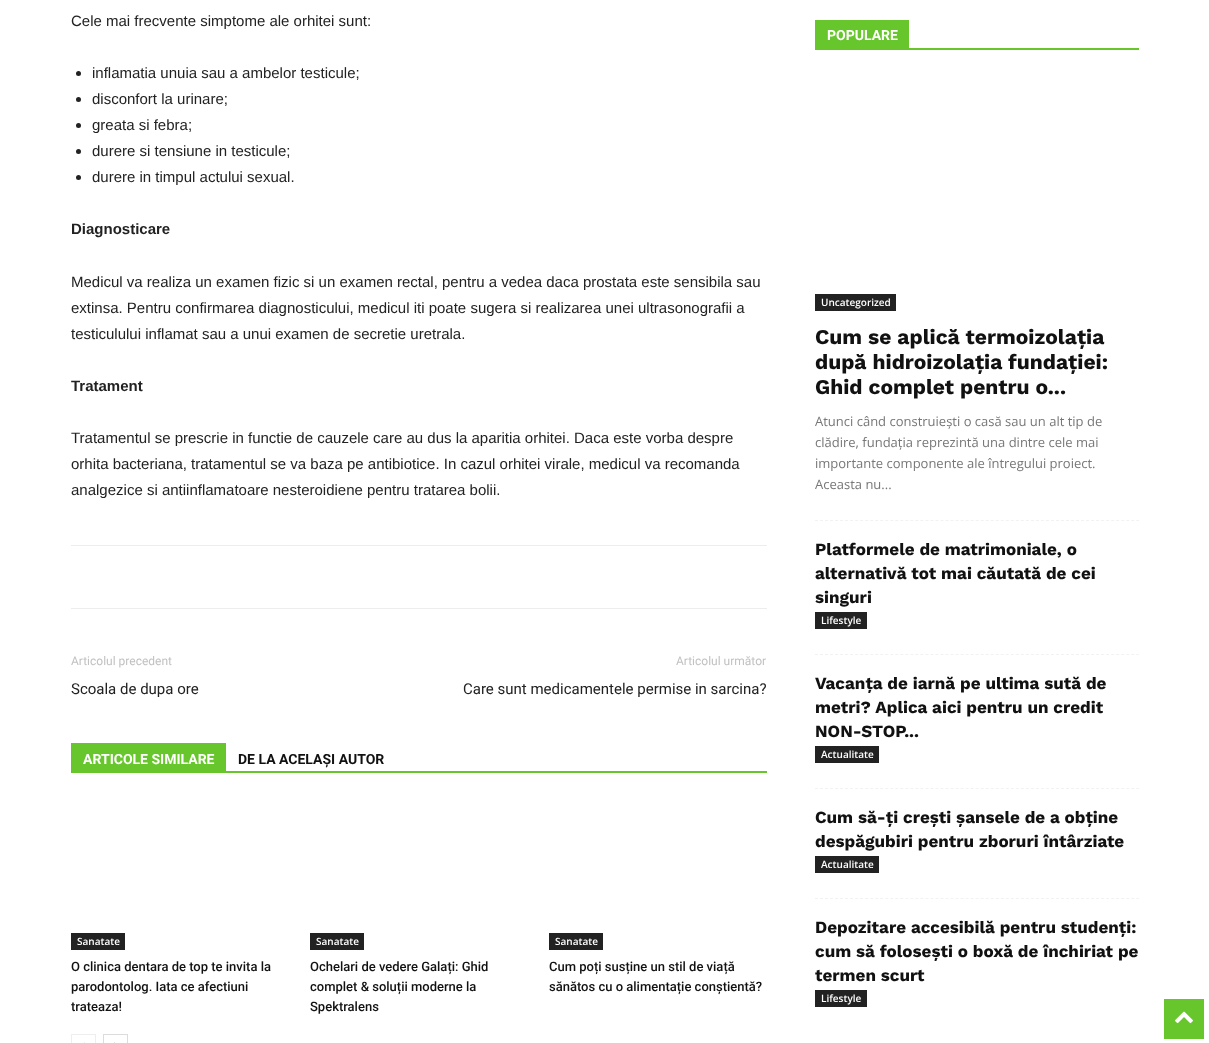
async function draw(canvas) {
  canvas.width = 1209;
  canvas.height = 1043;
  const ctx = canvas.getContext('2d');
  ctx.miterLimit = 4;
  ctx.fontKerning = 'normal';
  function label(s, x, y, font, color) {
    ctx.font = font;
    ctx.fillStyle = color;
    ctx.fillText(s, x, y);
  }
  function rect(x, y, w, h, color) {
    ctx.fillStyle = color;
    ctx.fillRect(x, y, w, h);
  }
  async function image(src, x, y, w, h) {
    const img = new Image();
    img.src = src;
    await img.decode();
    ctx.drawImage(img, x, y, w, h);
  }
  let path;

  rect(0, 0, 1209, 1043, '#fff');
  label('Cele mai frecvente simptome ale orhitei sunt:', 71, 26, '15px Liberation Sans', '#222');
  ctx.beginPath();
  ctx.arc(78.5, 73.5, 2.5, 0, 2 * Math.PI);
  ctx.fill();
  label('inflamatia unuia sau a ambelor testicule;', 92, 78, '15px Liberation Sans', '#222');
  ctx.beginPath();
  ctx.arc(78.5, 99.5, 2.5, 0, 2 * Math.PI);
  ctx.fill();
  label('disconfort la urinare;', 92, 104, '15px Liberation Sans', '#222');
  ctx.beginPath();
  ctx.arc(78.5, 125.5, 2.5, 0, 2 * Math.PI);
  ctx.fill();
  label('greata si febra;', 92, 130, '15px Liberation Sans', '#222');
  ctx.beginPath();
  ctx.arc(78.5, 151.5, 2.5, 0, 2 * Math.PI);
  ctx.fill();
  label('durere si tensiune in testicule;', 92, 156, '15px Liberation Sans', '#222');
  ctx.beginPath();
  ctx.arc(78.5, 177.5, 2.5, 0, 2 * Math.PI);
  ctx.fill();
  label('durere in timpul actului sexual.', 92, 182, '15px Liberation Sans', '#222');
  label('Diagnosticare', 71, 234, 'bold 15px Liberation Sans', '#222');
  label('Medicul va realiza un examen fizic si un examen rectal, pentru a vedea daca prostata este sensibila sau', 71, 287, '15px Liberation Sans', '#222');
  label('extinsa. Pentru confirmarea diagnosticului, medicul iti poate sugera si realizarea unei ultrasonografii a', 71, 313, '15px Liberation Sans', '#222');
  label('testiculului inflamat sau a unui examen de secretie uretrala.', 71, 339, '15px Liberation Sans', '#222');
  label('Tratament', 71, 391, 'bold 15px Liberation Sans', '#222');
  label('Tratamentul se prescrie in functie de cauzele care au dus la aparitia orhitei. Daca este vorba despre', 71, 443, '15px Liberation Sans', '#222');
  label('orhita bacteriana, tratamentul se va baza pe antibiotice. In cazul orhitei virale, medicul va recomanda', 71, 469, '15px Liberation Sans', '#222');
  label('analgezice si antiinflamatoare nesteroidiene pentru tratarea bolii.', 71, 495, '15px Liberation Sans', '#222');
  rect(71, 545, 696, 1, '#ededed');
  rect(71, 608, 696, 1, '#ededed');
  label('Articolul precedent', 71, 665, '12px Roboto', '#c1c1c1');
  label('Scoala de dupa ore', 71, 694, '15px Roboto', '#222');
  label('Articolul următor', 676, 665, '12px Roboto', '#c1c1c1');
  label('Care sunt medicamentele permise in sarcina?', 463, 694, '15px Roboto', '#222');
  rect(71, 771, 696, 2, '#68c62d');
  rect(71, 743, 155, 28, '#68c62d');
  label('ARTICOLE SIMILARE', 83, 764, 'bold 14px Roboto', '#fff');
  label('DE LA ACELAȘI AUTOR', 238, 764, 'bold 14px Roboto', '#111');
  rect(71, 933, 54, 17, '#222');
  label('Sanatate', 77, 945, '600 10px Open Sans', '#fff');
  label('O clinica dentara de top te invita la', 71, 971, '500 13px Roboto', '#111');
  label('parodontolog. Iata ce afectiuni', 71, 991, '500 13px Roboto', '#111');
  label('trateaza!', 71, 1011, '500 13px Roboto', '#111');
  rect(310, 933, 54, 17, '#222');
  label('Sanatate', 316, 945, '600 10px Open Sans', '#fff');
  label('Ochelari de vedere Galați: Ghid', 310, 971, '500 13px Roboto', '#111');
  label('complet & soluții moderne la', 310, 991, '500 13px Roboto', '#111');
  label('Spektralens', 310, 1011, '500 13px Roboto', '#111');
  rect(549, 933, 54, 17, '#222');
  label('Sanatate', 555, 945, '600 10px Open Sans', '#fff');
  label('Cum poți susține un stil de viață', 549, 971, '500 13px Roboto', '#111');
  label('sănătos cu o alimentație conștientă?', 549, 991, '500 13px Roboto', '#111');
  ctx.strokeStyle = '#eee';
  ctx.strokeRect(71.5, 1034.5, 24, 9);
  rect(84, 1042, 1, 1, '#f0f0f0');
  ctx.strokeStyle = '#dcdcdc';
  ctx.strokeRect(103.5, 1034.5, 24, 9);
  rect(114, 1042, 1, 1, '#e6e6e6');
  rect(815, 48, 324, 2, '#68c62d');
  rect(815, 20, 94, 28, '#68c62d');
  label('POPULARE', 827, 40, 'bold 14px Roboto', '#fff');
  path = new Path2D('M815 520.5H1139');
  ctx.strokeStyle = '#f2f2f2';
  ctx.setLineDash([3, 2.02]);
  ctx.stroke(path);
  rect(815, 294, 81, 17, '#222');
  label('Uncategorized', 821, 306, '600 10px Open Sans', '#fff');
  label('Cum se aplică termoizolația', 815, 344, 'bold 21px Work Sans', '#111');
  label('după hidroizolația fundației:', 815, 369, 'bold 21px Work Sans', '#111');
  label('Ghid complet pentru o...', 815, 394, 'bold 21px Work Sans', '#111');
  label('Atunci când construiești o casă sau un alt tip de', 815, 426, '13px Open Sans', '#777');
  label('clădire, fundația reprezintă una dintre cele mai', 815, 447, '13px Open Sans', '#777');
  label('importante componente ale întregului proiect.', 815, 468, '13px Open Sans', '#777');
  label('Aceasta nu...', 815, 489, '13px Open Sans', '#777');
  path = new Path2D('M815 654.5H1139');
  ctx.stroke(path);
  label('Platformele de matrimoniale, o', 815, 555, 'bold 17px Work Sans', '#111');
  label('alternativă tot mai căutată de cei', 815, 579, 'bold 17px Work Sans', '#111');
  label('singuri', 815, 603, 'bold 17px Work Sans', '#111');
  rect(815, 612, 52, 17, '#222');
  label('Lifestyle', 821, 624, '600 10px Open Sans', '#fff');
  path = new Path2D('M815 788.5H1139');
  ctx.stroke(path);
  label('Vacanța de iarnă pe ultima sută de', 815, 689, 'bold 17px Work Sans', '#111');
  label('metri? Aplica aici pentru un credit', 815, 713, 'bold 17px Work Sans', '#111');
  label('NON-STOP...', 815, 737, 'bold 17px Work Sans', '#111');
  rect(815, 746, 64, 17, '#222');
  label('Actualitate', 821, 758, '600 10px Open Sans', '#fff');
  path = new Path2D('M815 898.5H1139');
  ctx.stroke(path);
  label('Cum să-ți crești șansele de a obține', 815, 823, 'bold 17px Work Sans', '#111');
  label('despăgubiri pentru zboruri întârziate', 815, 847, 'bold 17px Work Sans', '#111');
  rect(815, 856, 64, 17, '#222');
  label('Actualitate', 821, 868, '600 10px Open Sans', '#fff');
  label('Depozitare accesibilă pentru studenți:', 815, 933, 'bold 17px Work Sans', '#111');
  label('cum să folosești o boxă de închiriat pe', 815, 957, 'bold 17px Work Sans', '#111');
  label('termen scurt', 815, 981, 'bold 17px Work Sans', '#111');
  rect(815, 990, 52, 17, '#222');
  label('Lifestyle', 821, 1002, '600 10px Open Sans', '#fff');
  rect(1164, 999, 40, 40, '#68c62d');
  await image('assets/img1.png', 1175, 1011, 18, 13);
}

draw(document.querySelector('canvas'));
